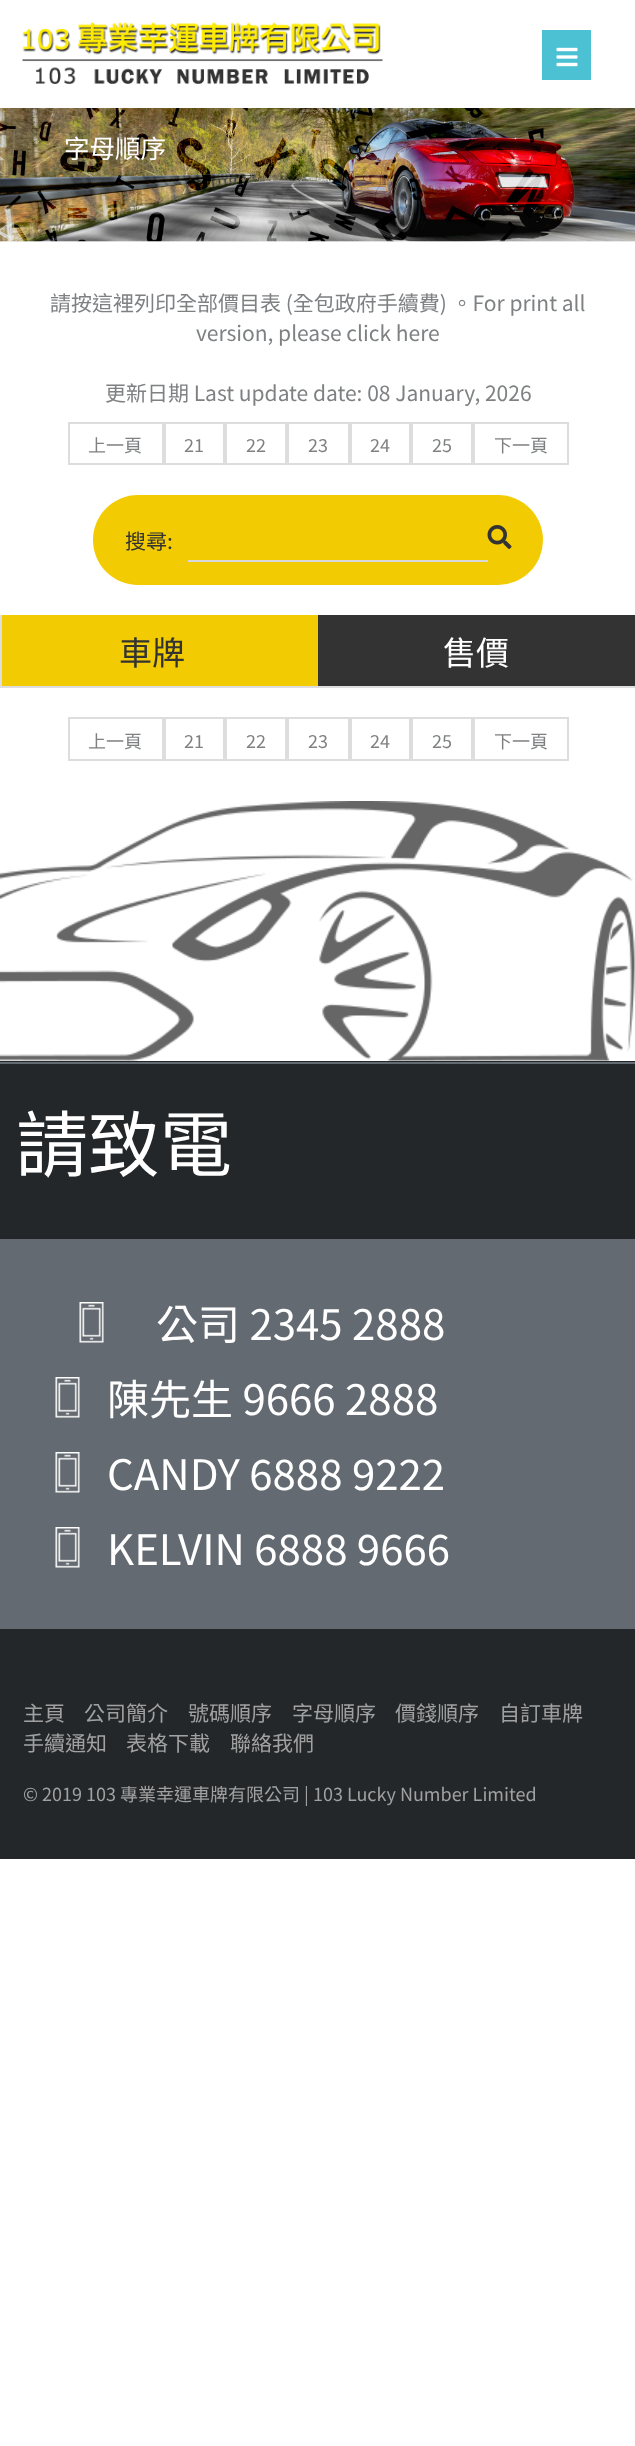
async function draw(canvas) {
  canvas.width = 635;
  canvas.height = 2446;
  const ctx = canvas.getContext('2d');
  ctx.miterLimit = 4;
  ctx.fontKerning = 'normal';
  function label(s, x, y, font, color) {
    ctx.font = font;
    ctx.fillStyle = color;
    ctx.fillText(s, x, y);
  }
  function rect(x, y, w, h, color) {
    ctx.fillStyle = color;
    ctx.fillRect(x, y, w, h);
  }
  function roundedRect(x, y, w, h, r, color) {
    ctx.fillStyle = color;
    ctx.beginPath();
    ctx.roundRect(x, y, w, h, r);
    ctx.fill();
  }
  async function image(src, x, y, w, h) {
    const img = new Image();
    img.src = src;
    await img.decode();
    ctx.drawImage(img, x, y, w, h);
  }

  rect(0, 0, 635, 2446, '#fff');
  await image('assets/img1.png', 22, 22, 361, 62);
  rect(542, 30, 49, 50, '#4cc1d3');
  await image('assets/img2.png', 556, 47, 22, 20);
  rect(0, 241, 635, 1, '#f6f6f6');
  await image('assets/img3.png', 0, 108, 635, 134);
  label('字母順序', 64, 158, '25.5px Noto Sans TC', '#fff');
  await image('assets/img4.png', 0, 801, 635, 260);
  label('請按這裡列印全部價目表 (全包政府手續費) 。For print all', 50, 311, '21px Noto Sans TC', '#7e8082');
  label('version, please click here', 196, 341, '21px Noto Sans TC', '#7e8082');
  label('更新日期 Last update date: 08 January, 2026', 105, 401, '21px Noto Sans TC', '#7e8082');
  ctx.strokeStyle = '#ddd';
  ctx.lineWidth = 2;
  ctx.strokeRect(69, 423, 94, 41);
  label('上一頁', 88, 452, '18px Noto Sans TC', '#7e8082');
  ctx.strokeRect(165, 423, 59, 41);
  label('21', 184, 452, '18px Noto Sans TC', '#7e8082');
  ctx.strokeRect(226, 423, 60, 41);
  label('22', 246, 452, '18px Noto Sans TC', '#7e8082');
  ctx.strokeRect(288, 423, 61, 41);
  label('23', 308, 452, '18px Noto Sans TC', '#7e8082');
  ctx.strokeRect(351, 423, 59, 41);
  label('24', 370, 452, '18px Noto Sans TC', '#7e8082');
  ctx.strokeRect(412, 423, 60, 41);
  label('25', 432, 452, '18px Noto Sans TC', '#7e8082');
  ctx.strokeRect(474, 423, 94, 41);
  label('下一頁', 494, 452, '18px Noto Sans TC', '#7e8082');
  roundedRect(93, 495, 450, 90, 45, '#f3cb02');
  label('搜尋:', 125, 549, '21px Noto Sans TC', '#333');
  await image('assets/img5.png', 487, 525, 25, 24);
  rect(188, 560, 300, 2, '#d9d9d9');
  rect(0, 686, 635, 2, '#ddd');
  rect(0, 615, 2, 72, '#ddd');
  rect(2, 615, 316, 71, '#f3cb02');
  label('車牌', 119, 665, '33px Noto Sans TC', '#333');
  rect(318, 615, 317, 71, '#333');
  label('售價', 443, 665, '33px Noto Sans TC', '#fff');
  ctx.strokeRect(69, 718, 94, 42);
  label('上一頁', 88, 748, '18px Noto Sans TC', '#7e8082');
  ctx.strokeRect(165, 718, 59, 42);
  label('21', 184, 748, '18px Noto Sans TC', '#7e8082');
  ctx.strokeRect(226, 718, 60, 42);
  label('22', 246, 748, '18px Noto Sans TC', '#7e8082');
  ctx.strokeRect(288, 718, 61, 42);
  label('23', 308, 748, '18px Noto Sans TC', '#7e8082');
  ctx.strokeRect(351, 718, 59, 42);
  label('24', 370, 748, '18px Noto Sans TC', '#7e8082');
  ctx.strokeRect(412, 718, 60, 42);
  label('25', 432, 748, '18px Noto Sans TC', '#7e8082');
  ctx.strokeRect(474, 718, 94, 42);
  label('下一頁', 494, 748, '18px Noto Sans TC', '#7e8082');
  rect(0, 1061, 635, 798, '#23272a');
  label('請致電', 16, 1171, '72px Noto Sans TC', '#fff');
  rect(0, 1062, 635, 2, '#636a71');
  rect(0, 1239, 635, 390, '#636a71');
  await image('assets/img6.png', 79, 1302, 25, 41);
  label('公司 2345 2888', 156, 1340, '42px Noto Sans TC', '#fff');
  await image('assets/img6.png', 55, 1377, 25, 41);
  label('陳先生 9666 2888', 107, 1415, '42px Noto Sans TC', '#fff');
  await image('assets/img6.png', 55, 1452, 25, 41);
  label('CANDY 6888 9222', 107, 1490, '42px Noto Sans TC', '#fff');
  await image('assets/img6.png', 55, 1527, 25, 41);
  label('KELVIN 6888 9666', 107, 1565, '42px Noto Sans TC', '#fff');
  label('主頁', 23, 1721, '21px Noto Sans TC', '#a1a1a1');
  label('公司簡介', 84, 1721, '21px Noto Sans TC', '#a1a1a1');
  label('號碼順序', 188, 1721, '21px Noto Sans TC', '#a1a1a1');
  label('字母順序', 292, 1721, '21px Noto Sans TC', '#a1a1a1');
  label('價錢順序', 395, 1721, '21px Noto Sans TC', '#a1a1a1');
  label('自訂車牌', 499, 1721, '21px Noto Sans TC', '#a1a1a1');
  label('手續通知', 23, 1751, '21px Noto Sans TC', '#a1a1a1');
  label('表格下載', 126, 1751, '21px Noto Sans TC', '#a1a1a1');
  label('聯絡我們', 230, 1751, '21px Noto Sans TC', '#a1a1a1');
  label('© 2019 103 專業幸運車牌有限公司 | 103 Lucky Number Limited', 23, 1801, '18px Noto Sans TC', '#a1a1a1');
}

draw(document.querySelector('canvas'));
